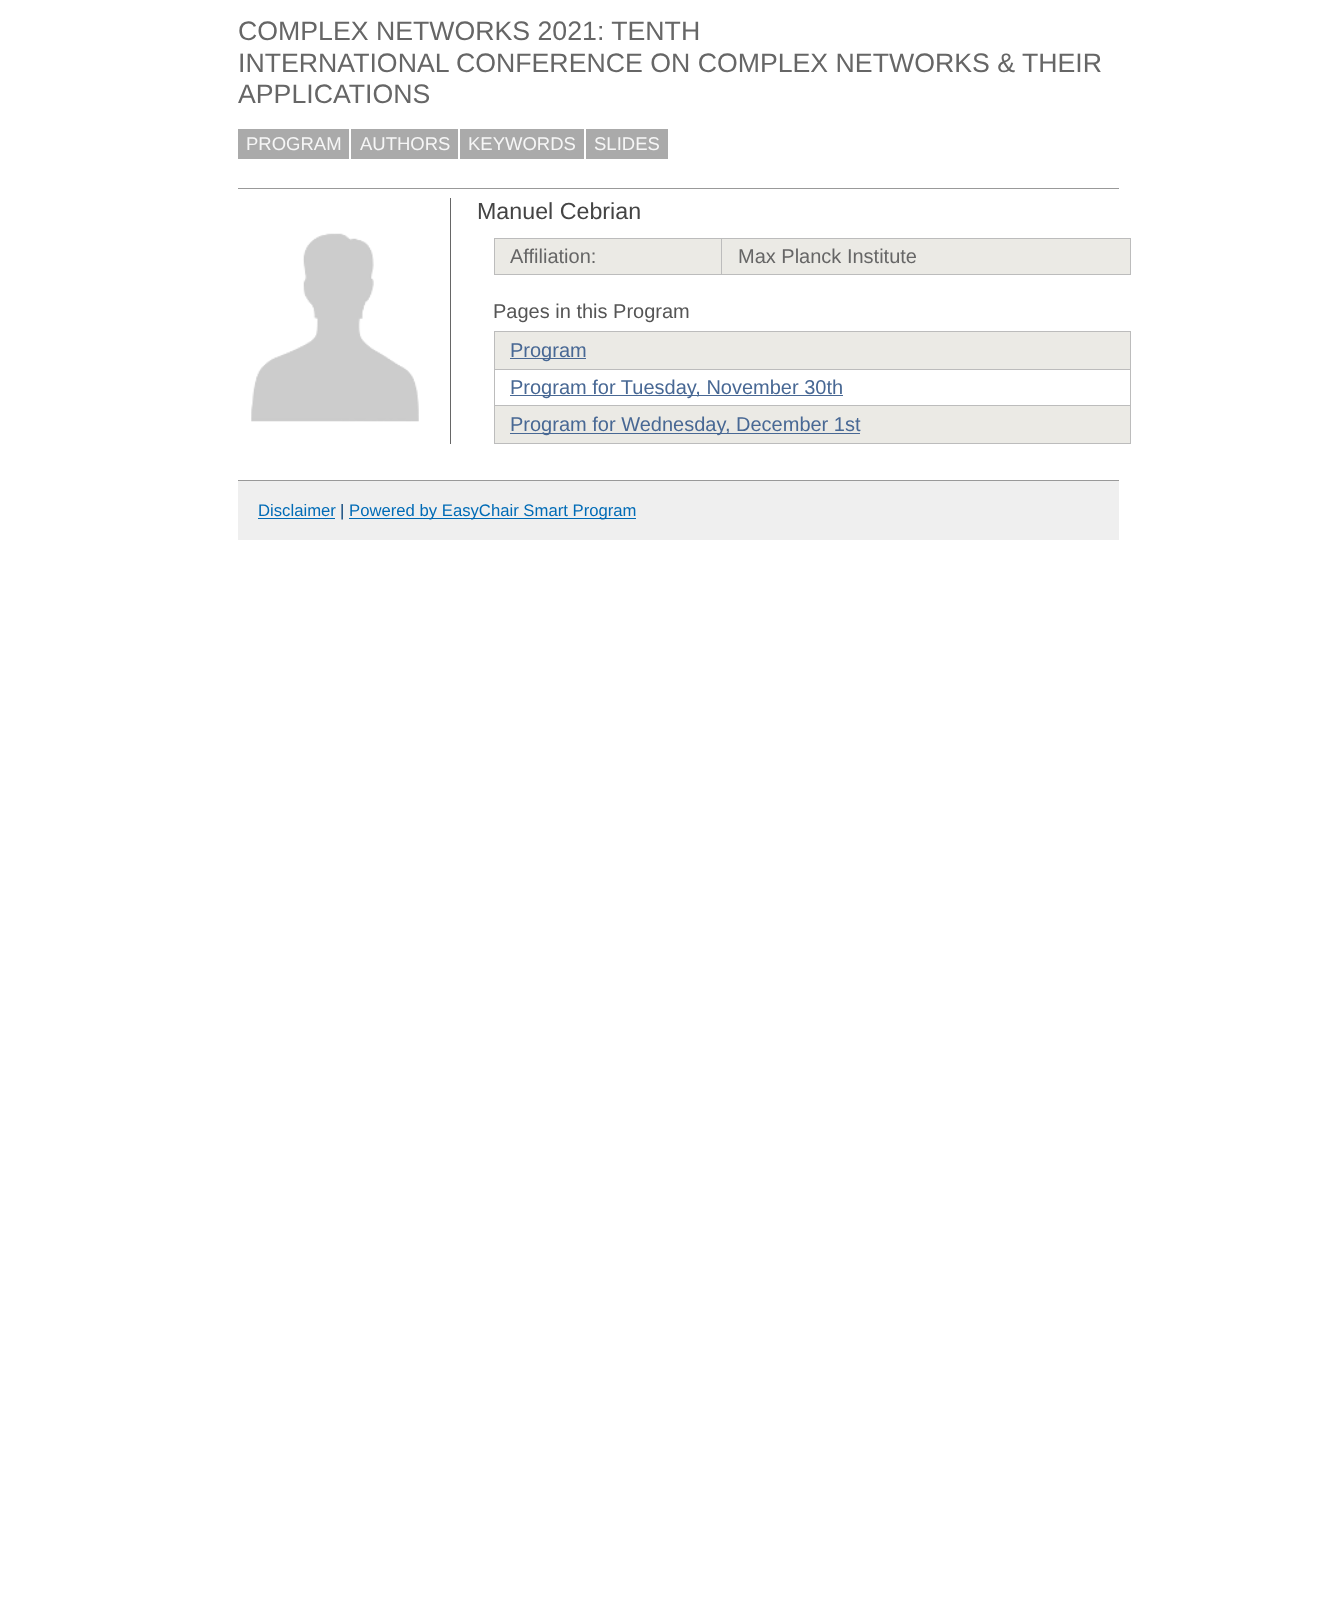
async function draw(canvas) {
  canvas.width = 1343;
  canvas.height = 1599;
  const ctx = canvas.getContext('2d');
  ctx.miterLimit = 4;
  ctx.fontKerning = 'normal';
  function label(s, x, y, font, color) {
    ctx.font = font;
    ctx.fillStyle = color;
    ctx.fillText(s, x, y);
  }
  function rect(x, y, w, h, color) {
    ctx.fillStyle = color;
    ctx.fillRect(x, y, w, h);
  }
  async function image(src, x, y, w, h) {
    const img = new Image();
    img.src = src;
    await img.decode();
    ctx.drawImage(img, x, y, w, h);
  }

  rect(0, 0, 1343, 1599, '#fff');
  label('COMPLEX NETWORKS 2021: TENTH', 238, 40, '26.7px Liberation Sans', '#666');
  label('INTERNATIONAL CONFERENCE ON COMPLEX NETWORKS & THEIR', 238, 72, '26.7px Liberation Sans', '#666');
  label('APPLICATIONS', 238, 103, '26.7px Liberation Sans', '#666');
  rect(238, 129, 111, 30, '#aaa');
  label('PROGRAM', 246, 150, '18.5px Liberation Sans', '#f6f6f6');
  rect(351, 129, 107, 30, '#aaa');
  label('AUTHORS', 360, 150, '18.5px Liberation Sans', '#f6f6f6');
  rect(460, 129, 124, 30, '#aaa');
  label('KEYWORDS', 468, 150, '18.5px Liberation Sans', '#f6f6f6');
  rect(586, 129, 82, 30, '#aaa');
  label('SLIDES', 594, 150, '18.5px Liberation Sans', '#f6f6f6');
  rect(238, 188, 881, 1, '#999');
  await image('assets/img1.png', 251, 233, 168, 189);
  rect(450, 198, 1, 246, '#666');
  label('Manuel Cebrian', 477, 219, '23.25px Liberation Sans', '#444');
  rect(495, 239, 635, 35, '#ebeae5');
  rect(494, 238, 637, 1, '#bcbcbc');
  rect(494, 274, 637, 1, '#bcbcbc');
  rect(494, 238, 1, 37, '#bcbcbc');
  label('Affiliation:', 510, 263, '20px Liberation Sans', '#666');
  rect(1130, 238, 1, 37, '#bcbcbc');
  rect(721, 238, 1, 37, '#bcbcbc');
  label('Max Planck Institute', 738, 263, '20px Liberation Sans', '#666');
  label('Pages in this Program', 493, 318, '20px Liberation Sans', '#555');
  rect(495, 332, 635, 37, '#ebeae5');
  rect(494, 331, 637, 1, '#bcbcbc');
  rect(510, 358, 76, 1, '#486894');
  label('Program', 510, 357, '20px Liberation Sans', '#486894');
  rect(494, 369, 637, 1, '#bcbcbc');
  rect(494, 405, 637, 1, '#bcbcbc');
  rect(494, 443, 637, 1, '#bcbcbc');
  rect(1130, 405, 1, 39, '#bcbcbc');
  rect(1130, 331, 1, 75, '#bcbcbc');
  rect(494, 405, 1, 39, '#bcbcbc');
  rect(494, 331, 1, 75, '#bcbcbc');
  rect(510, 395, 333, 1, '#486894');
  label('Program for Tuesday, November 30th', 510, 394, '20px Liberation Sans', '#486894');
  rect(495, 406, 635, 37, '#ebeae5');
  rect(510, 433, 350, 1, '#486894');
  label('Program for Wednesday, December 1st', 510, 431, '20px Liberation Sans', '#486894');
  rect(238, 481, 881, 59, '#efefef');
  rect(238, 480, 881, 1, '#999');
  label('Disclaimer', 258, 516, '16.7px Liberation Sans', '#006bb6');
  rect(258, 518, 77, 1, '#006bb6');
  label('|', 340, 516, '16.7px Liberation Sans', '#043f76');
  rect(349, 518, 287, 1, '#006bb6');
  label('Powered by EasyChair Smart Program', 349, 516, '16.7px Liberation Sans', '#006bb6');
}

draw(document.querySelector('canvas'));
